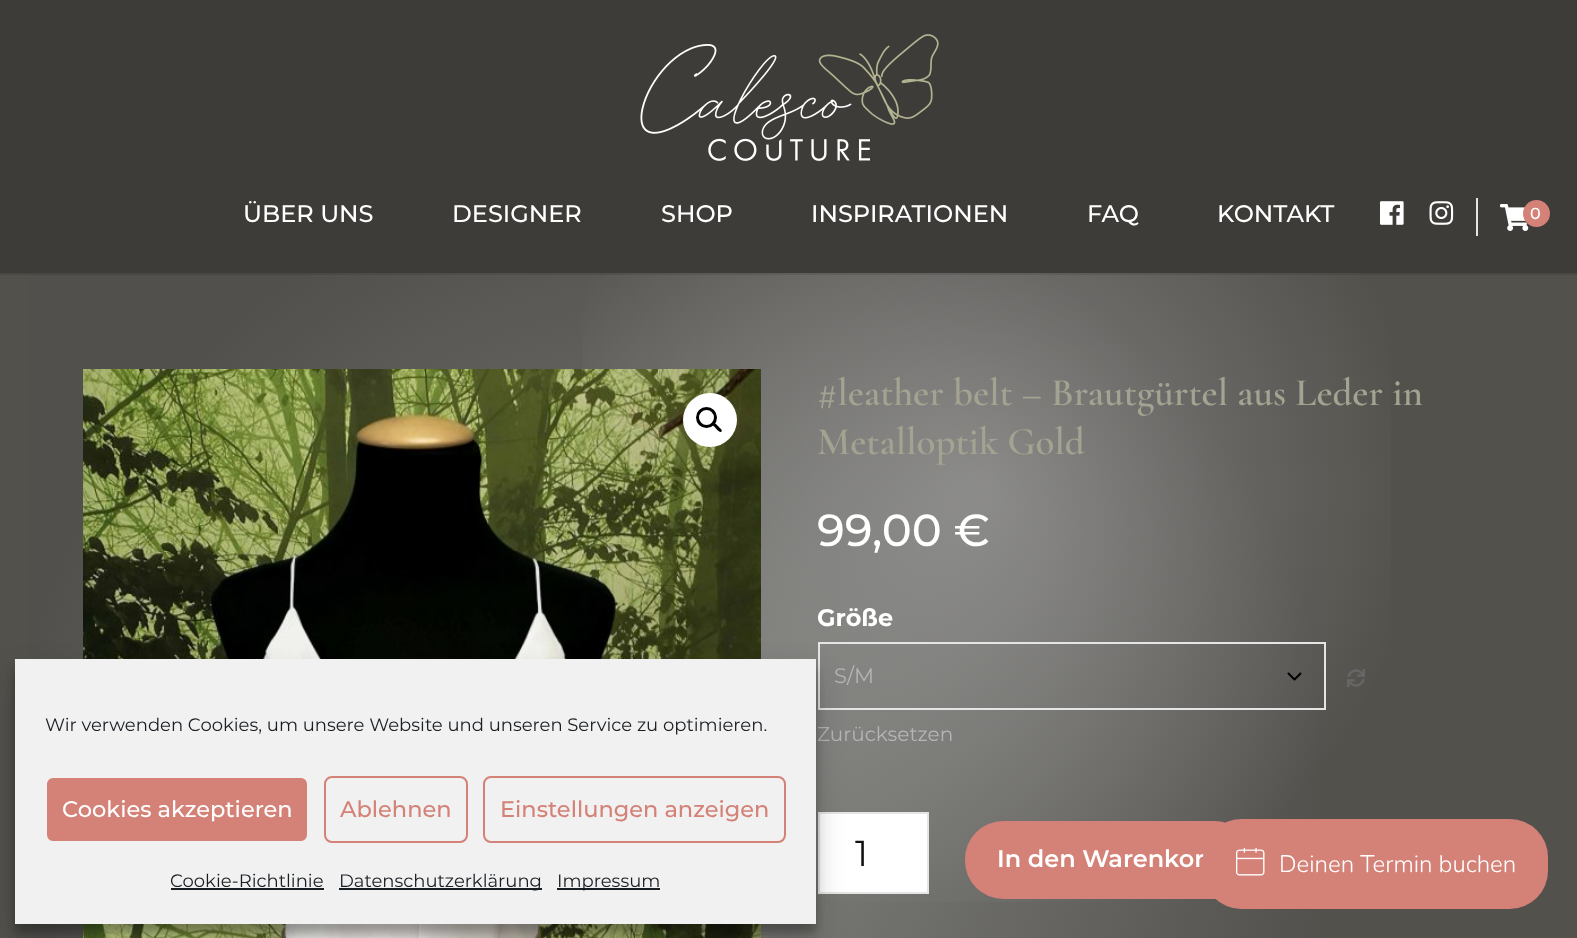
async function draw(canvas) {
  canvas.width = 1577;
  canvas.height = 938;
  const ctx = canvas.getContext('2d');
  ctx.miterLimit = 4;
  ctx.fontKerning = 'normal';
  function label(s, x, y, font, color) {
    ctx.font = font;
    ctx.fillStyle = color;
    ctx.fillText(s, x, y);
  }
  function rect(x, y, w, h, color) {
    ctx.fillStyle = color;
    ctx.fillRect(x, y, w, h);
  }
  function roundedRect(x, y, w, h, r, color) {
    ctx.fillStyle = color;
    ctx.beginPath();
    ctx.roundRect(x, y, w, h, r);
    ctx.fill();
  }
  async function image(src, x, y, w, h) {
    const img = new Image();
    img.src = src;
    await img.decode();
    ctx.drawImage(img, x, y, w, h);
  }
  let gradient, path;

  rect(0, 0, 1577, 938, '#52514c');
  gradient = ctx.createRadialGradient(675, 825, 0, 675, 825, 955);
  gradient.addColorStop(0, '#81817e');
  gradient.addColorStop(0.7, '#51504d');
  ctx.fillStyle = gradient;
  ctx.fillRect(30, 273, 1289, 665);
  gradient = ctx.createRadialGradient(978, 489, 0, 978, 489, 636);
  gradient.addColorStop(0, '#f2f2f24d');
  gradient.addColorStop(0.7, '#f2f2f200');
  ctx.fillStyle = gradient;
  ctx.fillRect(583, 273, 808, 629);
  rect(0, 273, 1577, 2, '#0000001a');
  rect(0, 0, 1577, 273, '#3d3c38');
  await image('assets/img1.png', 640, 34, 299, 127);
  label('ÜBER UNS', 243, 222, '500 24px Montserrat', '#fff');
  label('DESIGNER', 452, 222, '500 24px Montserrat', '#fff');
  label('SHOP', 661, 222, '500 24px Montserrat', '#fff');
  label('INSPIRATIONEN', 811, 222, '500 24px Montserrat', '#fff');
  label('FAQ', 1087, 222, '500 24px Montserrat', '#fff');
  label('KONTAKT', 1217, 222, '500 24px Montserrat', '#fff');
  await image('assets/img2.png', 1380, 201, 24, 24);
  await image('assets/img3.png', 1429, 201, 25, 24);
  rect(1476, 198, 2, 38, '#e5e5e5');
  await image('assets/img4.png', 1500, 204, 29, 27);
  ctx.fillStyle = '#d48177';
  ctx.beginPath();
  ctx.arc(1536.5, 213.5, 13.5, 0, 2 * Math.PI);
  ctx.fill();
  label('0', 1530, 219, '500 16px Montserrat', '#fff');
  await image('assets/img5.png', 83, 369, 678, 569);
  ctx.beginPath();
  ctx.arc(710, 420, 27, 0, 2 * Math.PI);
  ctx.fill();
  ctx.beginPath();
  ctx.arc(706.5, 417.5, 9, 0, 2 * Math.PI);
  ctx.strokeStyle = '#000';
  ctx.lineWidth = 3;
  ctx.stroke();
  ctx.fillStyle = '#000';
  path = new Path2D('M713 423.5C714.5 421.5 717.5 425.5 718.5 426.5C719 427.5 723 430 721.5 431.5C720 433.5 717 429.5 716 428.5C715.5 427.5 711.5 425 713 423.5Z');
  ctx.fill(path);
  label('#leather belt – Brautgürtel aus Leder in', 817, 405, '600 39px Cormorant Garamond', '#a4a291');
  label('Metalloptik Gold', 817, 454, '600 39px Cormorant Garamond', '#a4a291');
  label('99,00 €', 817, 546, '500 45px Montserrat', '#fff');
  label('Größe', 817, 626, 'bold 24px Montserrat', '#fff');
  path = new Path2D('M1288.5 673.5L1294.5 679.5L1300.5 673.5');
  ctx.lineWidth = 2;
  ctx.lineCap = 'round';
  ctx.lineJoin = 'round';
  ctx.stroke(path);
  ctx.strokeStyle = '#e5e5e5';
  ctx.lineJoin = 'miter';
  ctx.strokeRect(819, 643, 506, 66);
  label('S/M', 834, 683, '21px Montserrat', '#b5b5b5');
  await image('assets/img6.png', 1347, 669, 18, 18);
  label('Zurücksetzen', 817, 741, '20px Montserrat', '#b5b5b5');
  ctx.fillStyle = '#fff';
  ctx.beginPath();
  ctx.rect(819, 813, 109, 80);
  ctx.fill();
  ctx.stroke();
  label('1', 855, 866, '36px Montserrat', '#111');
  roundedRect(965, 821, 288, 78, 38, '#d48177');
  label('In den Warenkor', 997, 867, '600 24px Montserrat', '#fff');
  ctx.fillStyle = '#0000003b';
  ctx.filter = 'blur(4.5px)';
  ctx.beginPath();
  ctx.rect(15, 668, 801, 265);
  ctx.fill();
  ctx.filter = 'none';
  ctx.fillStyle = '#00000030';
  ctx.filter = 'blur(15px)';
  ctx.beginPath();
  ctx.rect(15, 674, 801, 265);
  ctx.fill();
  ctx.filter = 'none';
  rect(15, 659, 801, 265, '#f1f1f1');
  label('Wir verwenden Cookies, um unsere Website und unseren Service zu optimieren.', 45, 731, '18px Montserrat', '#191e23');
  ctx.fillStyle = '#d48177';
  ctx.beginPath();
  ctx.roundRect(46, 777, 262, 65, 7);
  ctx.fill();
  ctx.strokeStyle = '#f1f1f1';
  ctx.stroke();
  label('Cookies akzeptieren', 62, 817, '500 22.5px Montserrat', '#fff');
  ctx.beginPath();
  ctx.roundRect(325, 777, 142, 65, 7);
  ctx.strokeStyle = '#d48177';
  ctx.stroke();
  label('Ablehnen', 340, 817, '500 22.5px Montserrat', '#d48177');
  ctx.beginPath();
  ctx.roundRect(484, 777, 301, 65, 7);
  ctx.stroke();
  label('Einstellungen anzeigen', 500, 817, '500 22.5px Montserrat', '#d48177');
  label('Cookie-Richtlinie', 170, 887, '18px Montserrat', '#191e23');
  rect(171, 888, 153, 2, '#191e23');
  rect(339, 888, 203, 2, '#191e23');
  label('Datenschutzerklärung', 339, 887, '18px Montserrat', '#191e23');
  rect(557, 888, 103, 2, '#191e23');
  label('Impressum', 557, 887, '18px Montserrat', '#191e23');
  roundedRect(1203, 819, 345, 90, 38, '#d48177');
  await image('assets/img7.png', 1236, 848, 29, 28);
  label('Deinen Termin buchen', 1279, 872, '300 24px Nunito', '#fff');
}

draw(document.querySelector('canvas'));
